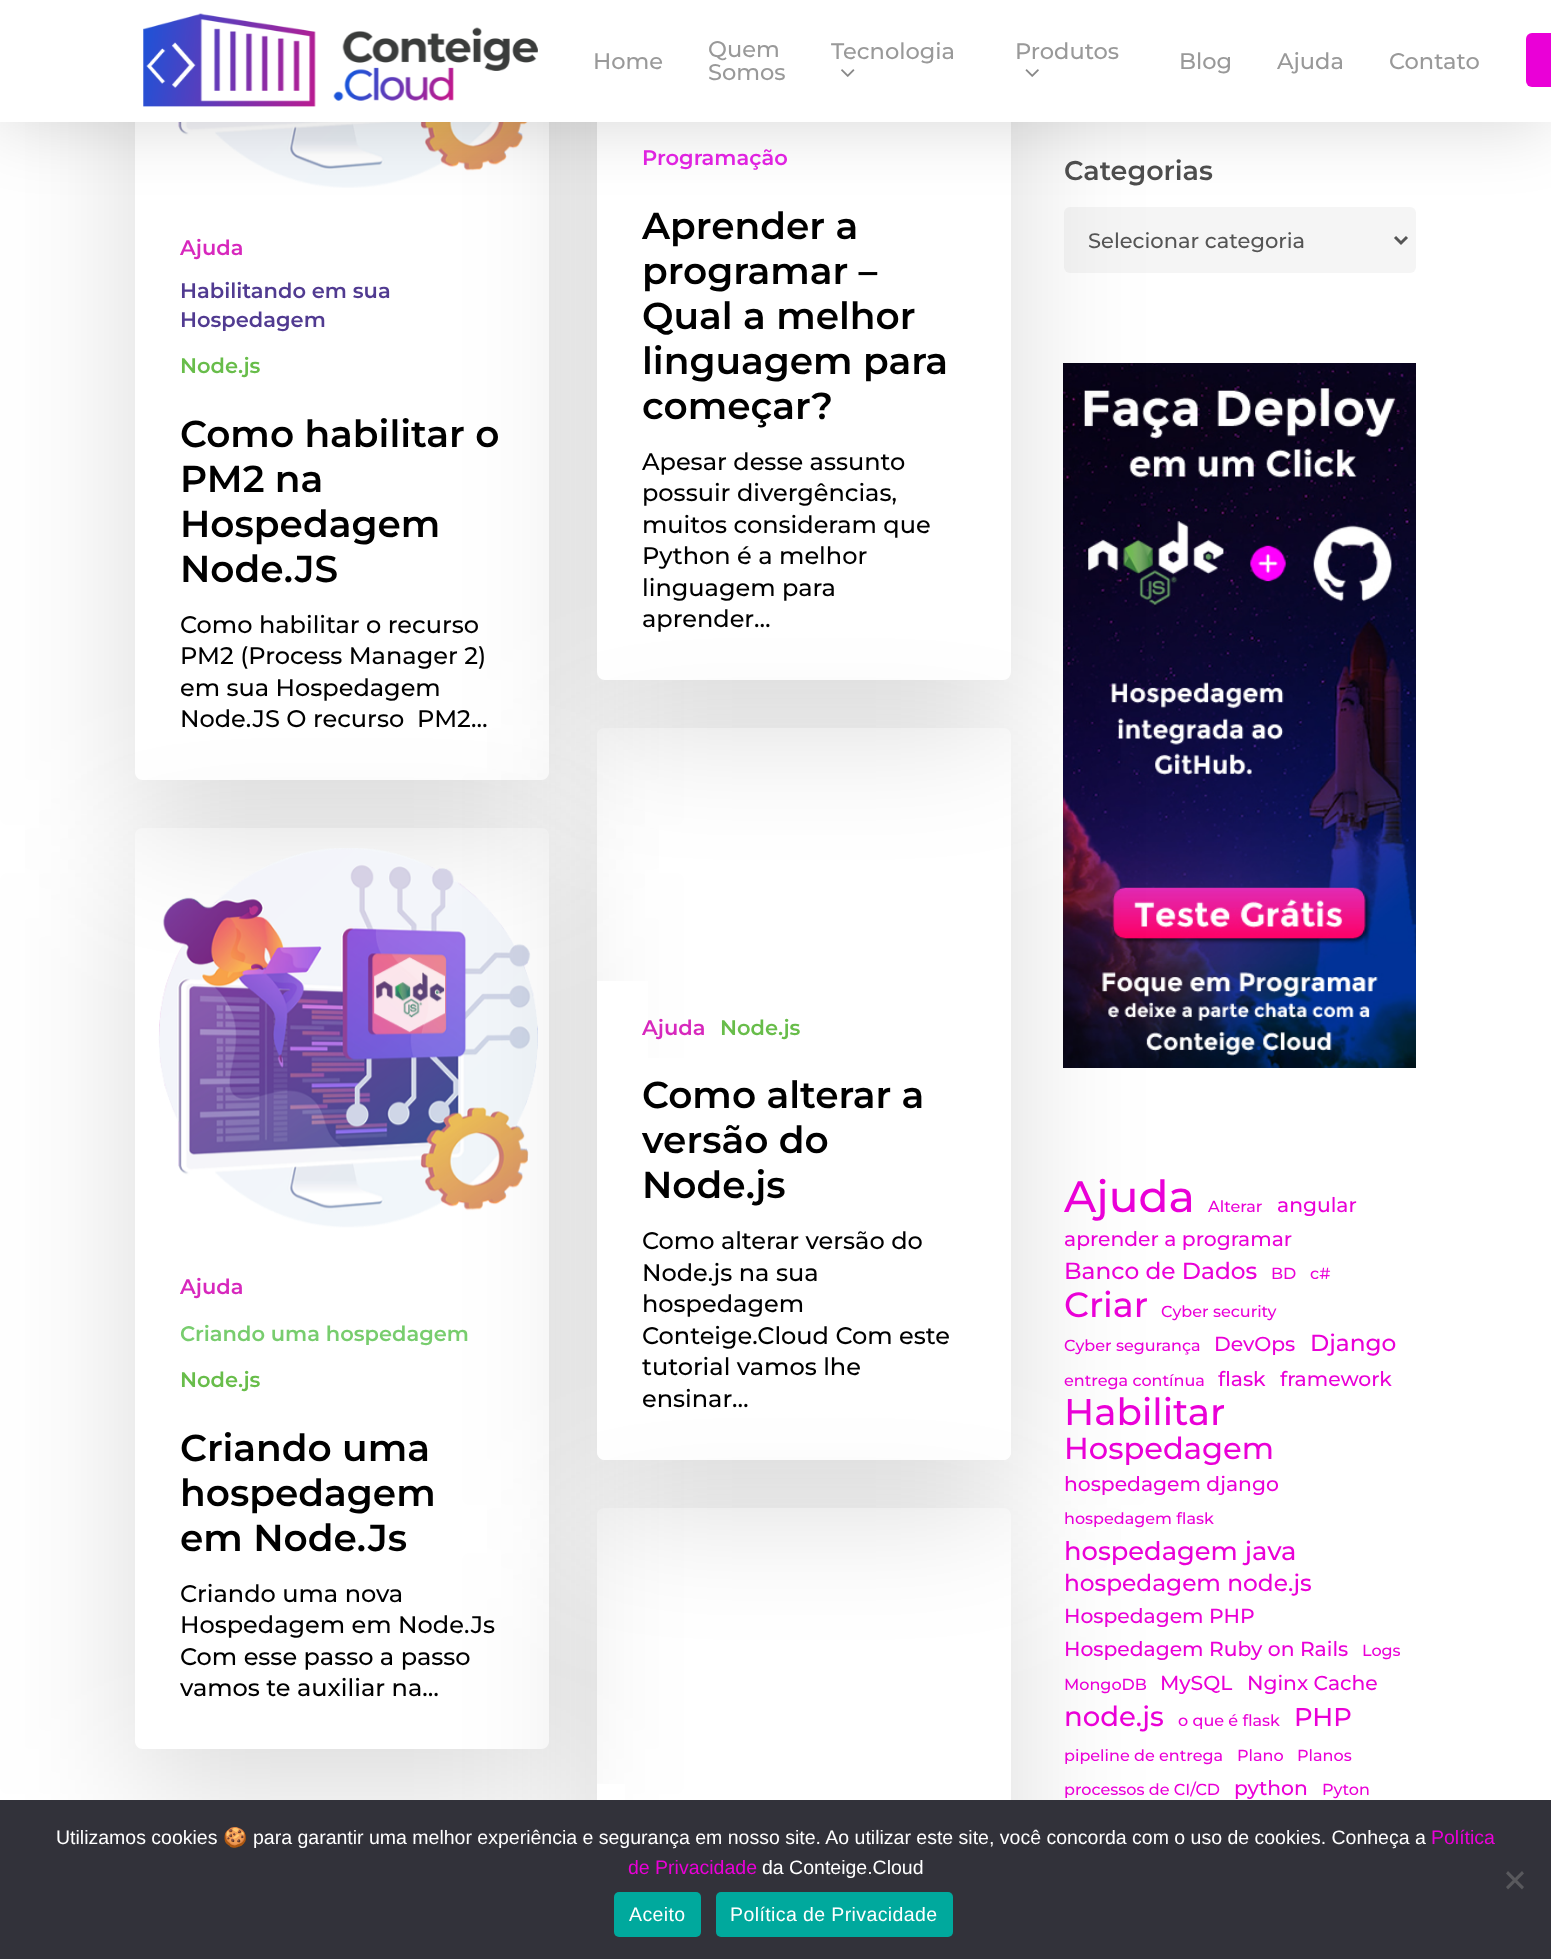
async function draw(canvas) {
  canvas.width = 1551;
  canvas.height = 1959;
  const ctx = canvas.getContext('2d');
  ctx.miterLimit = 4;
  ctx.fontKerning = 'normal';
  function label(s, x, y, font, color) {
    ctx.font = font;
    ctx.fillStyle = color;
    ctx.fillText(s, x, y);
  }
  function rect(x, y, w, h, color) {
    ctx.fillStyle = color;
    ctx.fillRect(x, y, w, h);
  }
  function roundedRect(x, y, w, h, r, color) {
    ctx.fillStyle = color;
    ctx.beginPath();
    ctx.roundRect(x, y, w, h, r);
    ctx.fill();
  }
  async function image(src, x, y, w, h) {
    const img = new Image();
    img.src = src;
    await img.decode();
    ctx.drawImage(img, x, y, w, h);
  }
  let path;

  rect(0, 0, 1551, 1959, '#fff');
  ctx.save();
  path = new Path2D('M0 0H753V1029H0ZM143-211H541C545.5-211 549-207.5 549-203V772C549 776.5 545.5 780 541 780H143C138.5 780 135 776.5 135 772V-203C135-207.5 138.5-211 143-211Z');
  ctx.clip(path, 'evenodd');
  ctx.fillStyle = '#00000024';
  ctx.filter = 'blur(67.5px)';
  ctx.beginPath();
  ctx.roundRect(135, -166, 414, 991, 8);
  ctx.fill();
  ctx.filter = 'none';
  ctx.restore();
  await image('assets/img4.png', 178, 122, 350, 66);
  ctx.save();
  path = new Path2D('M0 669H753V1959H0ZM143 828H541C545.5 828 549 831.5 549 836V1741C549 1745.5 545.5 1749 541 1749H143C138.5 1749 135 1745.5 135 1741V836C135 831.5 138.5 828 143 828Z');
  ctx.clip(path, 'evenodd');
  ctx.fillStyle = '#00000024';
  ctx.filter = 'blur(67.5px)';
  ctx.beginPath();
  ctx.roundRect(135, 873, 414, 921, 8);
  ctx.fill();
  ctx.filter = 'none';
  ctx.restore();
  await image('assets/img5.png', 158, 848, 380, 380);
  roundedRect(1064, 207, 352, 66, 6, '#f5f5f5');
  await image('assets/img6.png', 1063, 363, 353, 705);
  ctx.fillStyle = '#00000024';
  ctx.filter = 'blur(67.5px)';
  ctx.beginPath();
  ctx.roundRect(597, -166, 414, 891, 8);
  ctx.fill();
  ctx.filter = 'none';
  rect(597, 122, 414, 66, '#fff');
  ctx.beginPath();
  ctx.roundRect(597, 188, 414, 492, [0, 0, 8, 8]);
  ctx.fill();
  ctx.fillStyle = '#00000026';
  ctx.filter = 'blur(34px)';
  ctx.beginPath();
  ctx.rect(0, 5, 1551, 121);
  ctx.fill();
  ctx.filter = 'none';
  rect(0, 0, 1551, 122, '#fff');
  await image('assets/img1.png', 143, 13, 395, 94);
  label('Home', 593, 69, '500 22.5px Montserrat', '#999');
  label('Quem', 708, 57, '500 22.5px Montserrat', '#999');
  label('Somos', 708, 80, '500 22.5px Montserrat', '#999');
  label('Tecnologia', 831, 59, '500 22.5px Montserrat', '#999');
  await image('assets/img2.png', 841, 69, 14, 8);
  label('Produtos', 1015, 59, '500 22.5px Montserrat', '#999');
  await image('assets/img3.png', 1025, 69, 14, 8);
  label('Blog', 1179, 69, '500 22.5px Montserrat', '#999');
  label('Ajuda', 1277, 69, '500 22.5px Montserrat', '#999');
  label('Contato', 1389, 69, '500 22.5px Montserrat', '#999');
  roundedRect(1526, 33, 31, 54, 6, '#ea00d7');
  label('Ajuda', 180, 255, '600 21px Montserrat', '#d728bd');
  label('Habilitando em sua', 180, 298, '600 21px Montserrat', '#513b91');
  label('Hospedagem', 180, 327, '600 21px Montserrat', '#513b91');
  label('Node.js', 180, 373, '600 21px Montserrat', '#68bd4a');
  label('Como habilitar o', 180, 447, '600 37.5px Montserrat', '#000');
  label('PM2 na', 180, 492, '600 37.5px Montserrat', '#000');
  label('Hospedagem', 180, 537, '600 37.5px Montserrat', '#000');
  label('Node.JS', 180, 582, '600 37.5px Montserrat', '#000');
  label('Como habilitar o recurso', 180, 633, '500 24px Montserrat', '#000');
  label('PM2 (Process Manager 2)', 180, 664, '500 24px Montserrat', '#000');
  label('em sua Hospedagem', 180, 696, '500 24px Montserrat', '#000');
  label('Node.JS O recurso  PM2…', 180, 727, '500 24px Montserrat', '#000');
  label('Programação', 642, 165, '600 21px Montserrat', '#e023e0');
  label('Aprender a', 642, 239, '600 37.5px Montserrat', '#000');
  label('programar –', 642, 284, '600 37.5px Montserrat', '#000');
  label('Qual a melhor', 642, 329, '600 37.5px Montserrat', '#000');
  label('linguagem para', 642, 374, '600 37.5px Montserrat', '#000');
  label('começar?', 642, 419, '600 37.5px Montserrat', '#000');
  label('Apesar desse assunto', 642, 470, '500 24px Montserrat', '#000');
  label('possuir divergências,', 642, 501, '500 24px Montserrat', '#000');
  label('muitos consideram que', 642, 533, '500 24px Montserrat', '#000');
  label('Python é a melhor', 642, 564, '500 24px Montserrat', '#000');
  label('linguagem para', 642, 596, '500 24px Montserrat', '#000');
  label('aprender…', 642, 627, '500 24px Montserrat', '#000');
  ctx.save();
  path = new Path2D('M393 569H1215V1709H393ZM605 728H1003C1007.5 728 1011 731.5 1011 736V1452C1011 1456.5 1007.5 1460 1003 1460H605C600.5 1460 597 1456.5 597 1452V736C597 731.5 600.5 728 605 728Z');
  ctx.clip(path, 'evenodd');
  ctx.fillStyle = '#00000024';
  ctx.filter = 'blur(67.5px)';
  ctx.beginPath();
  ctx.roundRect(597, 773, 414, 732, 8);
  ctx.fill();
  ctx.filter = 'none';
  ctx.restore();
  rect(597, 981, 51, 77, '#fff');
  label('Ajuda', 642, 1035, '600 21px Montserrat', '#d728bd');
  label('Node.js', 720, 1035, '600 21px Montserrat', '#68bd4a');
  ctx.fillStyle = '#fff';
  ctx.beginPath();
  ctx.roundRect(597, 1058, 414, 402, [0, 0, 8, 8]);
  ctx.fill();
  label('Como alterar a', 642, 1108, '600 37.5px Montserrat', '#000');
  label('versão do', 642, 1153, '600 37.5px Montserrat', '#000');
  label('Node.js', 642, 1198, '600 37.5px Montserrat', '#000');
  label('Como alterar versão do', 642, 1249, '500 24px Montserrat', '#000');
  label('Node.js na sua', 642, 1281, '500 24px Montserrat', '#000');
  label('hospedagem', 642, 1312, '500 24px Montserrat', '#000');
  label('Conteige.Cloud Com este', 642, 1344, '500 24px Montserrat', '#000');
  label('tutorial vamos lhe', 642, 1375, '500 24px Montserrat', '#000');
  label('ensinar…', 642, 1407, '500 24px Montserrat', '#000');
  label('Ajuda', 180, 1294, '600 21px Montserrat', '#d728bd');
  label('Criando uma hospedagem', 180, 1341, '600 21px Montserrat', '#78cd6e');
  label('Node.js', 180, 1387, '600 21px Montserrat', '#68bd4a');
  label('Criando uma', 180, 1461, '600 37.5px Montserrat', '#000');
  label('hospedagem', 180, 1506, '600 37.5px Montserrat', '#000');
  label('em Node.Js', 180, 1551, '600 37.5px Montserrat', '#000');
  label('Criando uma nova', 180, 1602, '500 24px Montserrat', '#000');
  label('Hospedagem em Node.Js', 180, 1633, '500 24px Montserrat', '#000');
  label('Com esse passo a passo', 180, 1665, '500 24px Montserrat', '#000');
  label('vamos te auxiliar na…', 180, 1696, '500 24px Montserrat', '#000');
  ctx.save();
  path = new Path2D('M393 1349H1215V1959H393ZM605 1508H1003C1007.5 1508 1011 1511.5 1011 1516V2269C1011 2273.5 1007.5 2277 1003 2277H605C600.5 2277 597 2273.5 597 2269V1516C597 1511.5 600.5 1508 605 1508Z');
  ctx.clip(path, 'evenodd');
  ctx.fillStyle = '#00000024';
  ctx.filter = 'blur(67.5px)';
  ctx.beginPath();
  ctx.roundRect(597, 1553, 414, 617, 8);
  ctx.fill();
  ctx.filter = 'none';
  ctx.restore();
  rect(597, 1784, 28, 16, '#fff');
  label('Categorias', 1064, 180, '600 27px Montserrat', '#4d4d4d');
  path = new Path2D('M1395 237L1401 243L1407 237');
  ctx.strokeStyle = '#555';
  ctx.lineWidth = 3;
  ctx.stroke(path);
  label('Selecionar categoria', 1088, 248, '500 21px Montserrat', '#555');
  label('Ajuda', 1064, 1212, '500 44px Montserrat', '#ea00d7');
  label('Alterar', 1208, 1212, '500 16px Montserrat', '#ea00d7');
  label('angular', 1277, 1212, '500 20.3px Montserrat', '#ea00d7');
  label('aprender a programar', 1064, 1246, '500 20.3px Montserrat', '#ea00d7');
  label('Banco de Dados', 1064, 1279, '500 23.25px Montserrat', '#ea00d7');
  label('BD', 1271, 1279, '500 16px Montserrat', '#ea00d7');
  label('c#', 1310, 1279, '500 16px Montserrat', '#ea00d7');
  label('Criar', 1064, 1317, '500 35px Montserrat', '#ea00d7');
  label('Cyber security', 1161, 1317, '500 16px Montserrat', '#ea00d7');
  label('Cyber segurança', 1064, 1351, '500 16px Montserrat', '#ea00d7');
  label('DevOps', 1214, 1351, '500 20.3px Montserrat', '#ea00d7');
  label('Django', 1310, 1351, '500 23.25px Montserrat', '#ea00d7');
  label('entrega contínua', 1064, 1386, '500 16px Montserrat', '#ea00d7');
  label('flask', 1218, 1386, '500 20.3px Montserrat', '#ea00d7');
  label('framework', 1280, 1386, '500 20.3px Montserrat', '#ea00d7');
  label('Habilitar', 1064, 1425, '500 37.25px Montserrat', '#ea00d7');
  label('Hospedagem', 1064, 1459, '500 30.5px Montserrat', '#ea00d7');
  label('hospedagem django', 1064, 1491, '500 20.3px Montserrat', '#ea00d7');
  label('hospedagem flask', 1064, 1524, '500 16px Montserrat', '#ea00d7');
  label('hospedagem java', 1064, 1560, '500 25.75px Montserrat', '#ea00d7');
  label('hospedagem node.js', 1064, 1591, '500 23.25px Montserrat', '#ea00d7');
  label('Hospedagem PHP', 1064, 1623, '500 20.3px Montserrat', '#ea00d7');
  label('Hospedagem Ruby on Rails', 1064, 1656, '500 20.3px Montserrat', '#ea00d7');
  label('Logs', 1362, 1656, '500 16px Montserrat', '#ea00d7');
  label('MongoDB', 1064, 1690, '500 16px Montserrat', '#ea00d7');
  label('MySQL', 1160, 1690, '500 20.3px Montserrat', '#ea00d7');
  label('Nginx Cache', 1247, 1690, '500 20.3px Montserrat', '#ea00d7');
  label('node.js', 1064, 1726, '500 27.5px Montserrat', '#ea00d7');
  label('o que é flask', 1178, 1726, '500 16px Montserrat', '#ea00d7');
  label('PHP', 1294, 1726, '500 25.75px Montserrat', '#ea00d7');
  label('pipeline de entrega', 1064, 1761, '500 16px Montserrat', '#ea00d7');
  label('Plano', 1237, 1761, '500 16px Montserrat', '#ea00d7');
  label('Planos', 1297, 1761, '500 16px Montserrat', '#ea00d7');
  label('processos de CI/CD', 1064, 1795, '500 16px Montserrat', '#ea00d7');
  label('python', 1234, 1795, '500 20.3px Montserrat', '#ea00d7');
  label('Pyton', 1322, 1795, '500 16px Montserrat', '#ea00d7');
  rect(0, 1800, 1551, 159, '#32323a');
  label('Utilizamos cookies', 56, 1844, '19.5px Liberation Sans', '#fff');
  label('🍪', 223, 1844, '19.5px Noto Color Emoji', '#fff');
  label('para garantir uma melhor experiência e segurança em nosso site. Ao utilizar este site, você concorda com o uso de cookies. Conheça a', 253, 1844, '19.5px Liberation Sans', '#fff');
  label('Política', 1431, 1844, '19.5px Liberation Sans', '#ea00d7');
  label('de Privacidade', 628, 1874, '19.5px Liberation Sans', '#ea00d7');
  label('da Conteige.Cloud', 762, 1874, '19.5px Liberation Sans', '#fff');
  ctx.fillStyle = '#59595d';
  path = new Path2D('M1522 1871L1524 1873.5L1508 1889.5L1506 1887Z');
  ctx.fill(path);
  path = new Path2D('M1506 1873.5L1508 1871L1524 1887L1522 1889.5Z');
  ctx.fill(path);
  roundedRect(614, 1892, 87, 45, 5, '#00a99d');
  ctx.letterSpacing = '0.4px';
  label('Aceito', 629, 1921, '19.5px Liberation Sans', '#fff');
  roundedRect(716, 1892, 237, 45, 5, '#00a99d');
  label('Política de Privacidade', 730, 1921, '19.5px Liberation Sans', '#fff');
}

draw(document.querySelector('canvas'));
